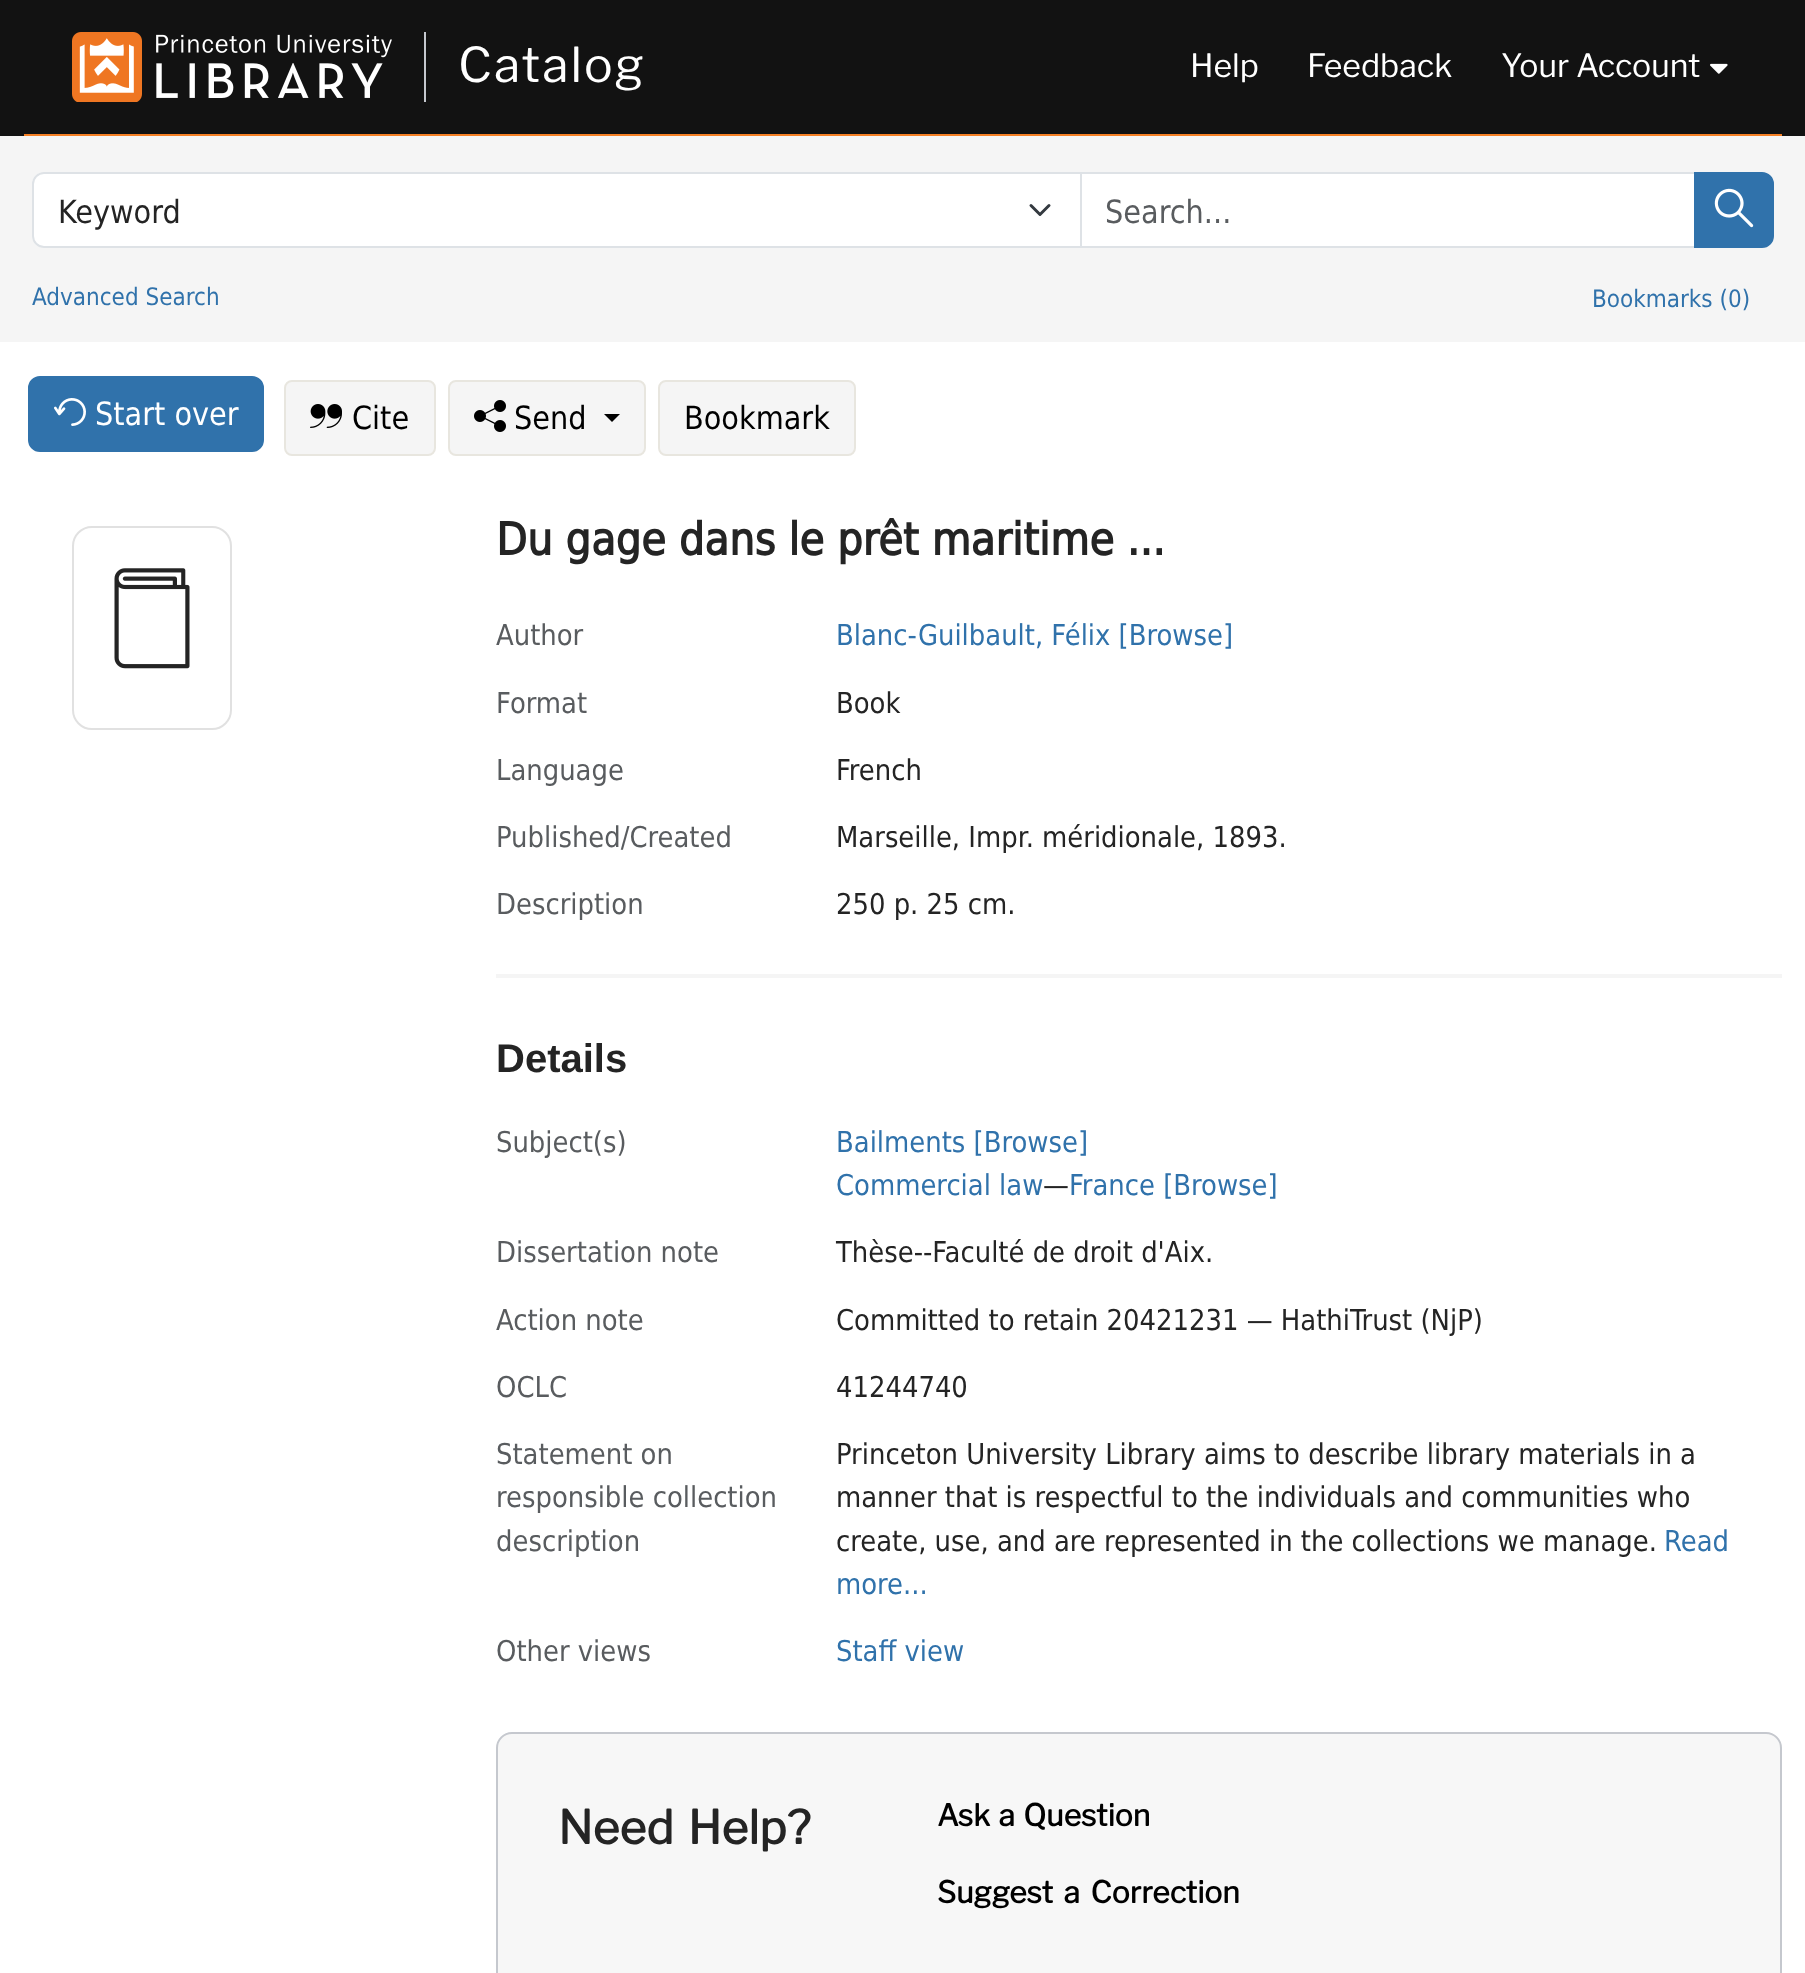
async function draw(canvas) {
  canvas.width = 1805;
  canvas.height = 1973;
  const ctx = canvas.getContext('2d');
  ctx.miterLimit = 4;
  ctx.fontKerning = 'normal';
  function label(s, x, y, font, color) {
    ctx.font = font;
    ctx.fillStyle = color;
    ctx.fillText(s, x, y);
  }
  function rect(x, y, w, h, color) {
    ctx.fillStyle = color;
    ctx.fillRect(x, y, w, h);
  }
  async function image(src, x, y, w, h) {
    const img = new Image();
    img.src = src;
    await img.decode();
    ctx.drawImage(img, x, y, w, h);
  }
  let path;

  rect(0, 0, 1805, 1973, '#f5f5f5');
  rect(0, 0, 1805, 136, '#121212');
  rect(24, 134, 1758, 2, '#f58025');
  await image('assets/img1.png', 72, 32, 320, 70);
  rect(424, 32, 2, 70, '#c5c8ce');
  ctx.letterSpacing = '2px';
  label('Catalog', 458, 82, '48px Libre Franklin', '#fff');
  ctx.letterSpacing = '0px';
  label('Help', 1190, 77, '32px Libre Franklin', '#fff');
  label('Feedback', 1307, 77, '32px Libre Franklin', '#fff');
  await image('assets/img2.png', 1710, 63, 18, 11);
  label('Your Account', 1501, 77, '32px Libre Franklin', '#fff');
  ctx.beginPath();
  ctx.rect(1081, 173, 614, 74);
  ctx.fill();
  ctx.strokeStyle = '#dee2e6';
  ctx.lineWidth = 2;
  ctx.stroke();
  ctx.beginPath();
  ctx.roundRect(32, 172, 1050, 76, [12, 0, 0, 12]);
  ctx.fill();
  path = new Path2D('M1031 205.5L1040 214.5L1049 205.5');
  ctx.strokeStyle = '#343a40';
  ctx.lineWidth = 3;
  ctx.lineCap = 'round';
  ctx.lineJoin = 'round';
  ctx.stroke(path);
  ctx.beginPath();
  ctx.roundRect(33, 173, 1048, 74, [11, 0, 0, 11]);
  ctx.strokeStyle = '#dee2e6';
  ctx.lineWidth = 2;
  ctx.lineJoin = 'miter';
  ctx.stroke();
  label('Keyword', 58, 223, '32px DejaVu Sans', '#242424');
  label('Search...', 1105, 223, '32px DejaVu Sans', '#595c5f');
  ctx.fillStyle = '#3072ab';
  ctx.beginPath();
  ctx.roundRect(1695, 173, 78, 74, [0, 11, 11, 0]);
  ctx.fill();
  ctx.strokeStyle = '#3072ab';
  ctx.stroke();
  await image('assets/img3.png', 1714, 188, 40, 40);
  label('Advanced Search', 32, 305, '24px DejaVu Sans', '#3072ab');
  label('Bookmarks (0)', 1592, 307, '24px DejaVu Sans', '#3072ab');
  rect(0, 342, 1805, 1631, '#fff');
  ctx.fillStyle = '#3072ab';
  ctx.beginPath();
  ctx.roundRect(29, 377, 234, 74, 11);
  ctx.fill();
  ctx.stroke();
  await image('assets/img4.png', 54, 398, 32, 28);
  label('Start over', 95, 425, '32px DejaVu Sans', '#fff');
  ctx.fillStyle = '#f5f5f5';
  ctx.beginPath();
  ctx.roundRect(285, 381, 150, 74, 7);
  ctx.fill();
  ctx.strokeStyle = '#e8e6df';
  ctx.stroke();
  await image('assets/img5.png', 310, 404, 32, 24);
  label('Cite', 352, 429, '32px DejaVu Sans', '#000');
  ctx.fillStyle = '#f5f5f5';
  ctx.beginPath();
  ctx.roundRect(449, 381, 196, 74, 7);
  ctx.fill();
  ctx.stroke();
  await image('assets/img6.png', 474, 400, 32, 32);
  label('Send', 514, 429, '32px DejaVu Sans', '#000');
  path = new Path2D('M604 414H620L612 422Z');
  ctx.fill(path);
  ctx.fillStyle = '#f5f5f5';
  ctx.beginPath();
  ctx.roundRect(659, 381, 196, 74, 7);
  ctx.fill();
  ctx.stroke();
  label('Bookmark', 684, 429, '32px DejaVu Sans', '#000');
  ctx.beginPath();
  ctx.roundRect(73, 527, 158, 202, 19);
  ctx.strokeStyle = '#e1e1e1';
  ctx.stroke();
  await image('assets/img7.png', 114, 568, 76, 101);
  label('Du gage dans le prêt maritime ...', 496, 555, 'bold 44.75px DejaVu Sans', '#242424');
  rect(496, 974, 1286, 4, '#f5f5f5');
  label('Author', 496, 645, '28.8px DejaVu Sans', '#595c5f');
  label('Blanc-Guilbault, Félix [Browse]', 836, 645, '28.8px DejaVu Sans', '#3072ab');
  label('Format', 496, 713, '28.8px DejaVu Sans', '#595c5f');
  label('Book', 836, 713, '28.8px DejaVu Sans', '#242424');
  label('Language', 496, 780, '28.8px DejaVu Sans', '#595c5f');
  label('French', 836, 780, '28.8px DejaVu Sans', '#242424');
  label('Published/Created', 496, 847, '28.8px DejaVu Sans', '#595c5f');
  label('Marseille, Impr. méridionale, 1893.', 836, 847, '28.8px DejaVu Sans', '#242424');
  label('Description', 496, 914, '28.8px DejaVu Sans', '#595c5f');
  label('250 p. 25 cm.', 836, 914, '28.8px DejaVu Sans', '#242424');
  label('Details', 496, 1072, 'bold 40px Liberation Sans', '#242424');
  label('Subject(s)', 496, 1152, '28.8px DejaVu Sans', '#595c5f');
  label('Bailments [Browse]', 836, 1152, '28.8px DejaVu Sans', '#3072ab');
  label('Commercial law', 836, 1195, '28.8px DejaVu Sans', '#3072ab');
  label('—', 1043, 1195, '28.8px DejaVu Sans', '#242424');
  label('France [Browse]', 1069, 1195, '28.8px DejaVu Sans', '#3072ab');
  label('Dissertation note', 496, 1262, '28.8px DejaVu Sans', '#595c5f');
  label('Thèse--Faculté de droit d\'Aix.', 836, 1262, '28.8px DejaVu Sans', '#242424');
  label('Action note', 496, 1330, '28.8px DejaVu Sans', '#595c5f');
  label('Committed to retain 20421231 — HathiTrust (NjP)', 836, 1330, '28.8px DejaVu Sans', '#242424');
  label('OCLC', 496, 1397, '28.8px DejaVu Sans', '#595c5f');
  label('41244740', 836, 1397, '28.8px DejaVu Sans', '#242424');
  label('Statement on', 496, 1464, '28.8px DejaVu Sans', '#595c5f');
  label('responsible collection', 496, 1507, '28.8px DejaVu Sans', '#595c5f');
  label('description', 496, 1551, '28.8px DejaVu Sans', '#595c5f');
  label('Princeton University Library aims to describe library materials in a', 836, 1464, '28.8px DejaVu Sans', '#242424');
  label('manner that is respectful to the individuals and communities who', 836, 1507, '28.8px DejaVu Sans', '#242424');
  label('create, use, and are represented in the collections we manage.', 836, 1551, '28.8px DejaVu Sans', '#242424');
  label('Read', 1664, 1551, '28.8px DejaVu Sans', '#3072ab');
  label('more...', 836, 1594, '28.8px DejaVu Sans', '#3072ab');
  label('Other views', 496, 1661, '28.8px DejaVu Sans', '#595c5f');
  label('Staff view', 836, 1661, '28.8px DejaVu Sans', '#3072ab');
  ctx.fillStyle = '#f7f7f7';
  ctx.beginPath();
  ctx.roundRect(497, 1733, 1284, 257, 15);
  ctx.fill();
  ctx.strokeStyle = '#c5c8ce';
  ctx.stroke();
  ctx.wordSpacing = '4px';
  label('Need Help?', 558, 1844, 'bold 46px Libre Franklin', '#242424');
  ctx.wordSpacing = '2px';
  label('Ask a Question', 937, 1826, 'bold 30px Libre Franklin', '#000');
  ctx.wordSpacing = '4px';
  label('Suggest a Correction', 937, 1903, 'bold 30px Libre Franklin', '#000');
}

draw(document.querySelector('canvas'));
